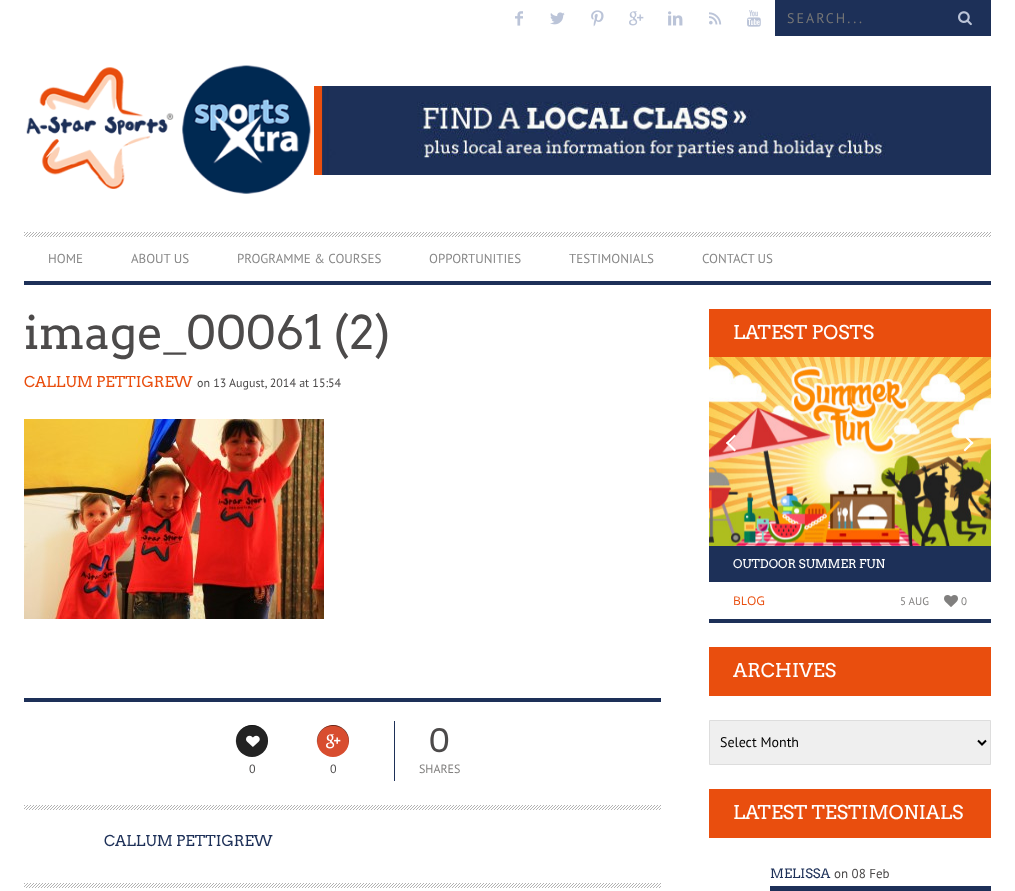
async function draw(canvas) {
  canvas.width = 1015;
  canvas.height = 891;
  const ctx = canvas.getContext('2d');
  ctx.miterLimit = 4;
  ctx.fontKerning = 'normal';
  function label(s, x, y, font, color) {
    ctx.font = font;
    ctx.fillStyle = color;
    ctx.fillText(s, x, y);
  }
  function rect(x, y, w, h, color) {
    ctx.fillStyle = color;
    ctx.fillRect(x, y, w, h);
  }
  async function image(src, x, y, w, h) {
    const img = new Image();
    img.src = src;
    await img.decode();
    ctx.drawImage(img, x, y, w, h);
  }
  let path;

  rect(0, 0, 1015, 891, '#fff');
  await image('assets/img1.png', 515, 11, 8, 15);
  await image('assets/img2.png', 550, 12, 15, 13);
  await image('assets/img3.png', 591, 10, 13, 17);
  await image('assets/img4.png', 629, 11, 15, 15);
  await image('assets/img5.png', 668, 11, 15, 15);
  await image('assets/img6.png', 709, 12, 13, 13);
  await image('assets/img7.png', 747, 10, 14, 17);
  rect(775, 0, 216, 36, '#1d3058');
  ctx.letterSpacing = '2px';
  label('SEARCH...', 787, 23, '14px PT Sans', '#757575');
  await image('assets/img8.png', 958, 11, 14, 15);
  await image('assets/img9.png', 26, 65, 285, 129);
  await image('assets/img10.png', 314, 86, 677, 89);
  await image('assets/img11.png', 24, 232, 967, 5);
  rect(24, 281, 967, 4, '#1d3058');
  ctx.letterSpacing = '0px';
  label('HOME', 48, 263, '13px PT Sans', '#888');
  label('ABOUT US', 131, 263, '13px PT Sans', '#888');
  label('PROGRAMME & COURSES', 237, 263, '13px PT Sans', '#888');
  label('OPPORTUNITIES', 429, 263, '13px PT Sans', '#888');
  label('TESTIMONIALS', 569, 263, '13px PT Sans', '#888');
  label('CONTACT US', 702, 263, '13px PT Sans', '#888');
  label('image_00061 (2)', 24, 349, '46px Arvo', '#4c4a4a');
  label('CALLUM PETTIGREW', 24, 387, '15px Arvo', '#e94e0e');
  label('on 13 August, 2014 at 15:54', 197, 387, '12px PT Sans', '#4c4a4a');
  await image('assets/img12.png', 24, 419, 300, 200);
  rect(24, 698, 637, 4, '#1d3058');
  ctx.fillStyle = '#232323';
  ctx.beginPath();
  ctx.arc(252, 741, 16, 0, 2 * Math.PI);
  ctx.fill();
  ctx.fillStyle = '#00000080';
  path = new Path2D('M252 726C264 726 269 736 267.5 745C268.5 740.5 268 736 265.5 732C255 717 232 728 236.5 745C235 736 240 726 252 726Z');
  ctx.fill(path);
  await image('assets/img13.png', 246, 735, 14, 12);
  label('0', 249, 773, '12px PT Sans', '#4c4a4a');
  ctx.fillStyle = '#d84d2f';
  ctx.beginPath();
  ctx.arc(333, 741, 16, 0, 2 * Math.PI);
  ctx.fill();
  ctx.fillStyle = '#00000080';
  path = new Path2D('M333 726C345 726 350 736 348.5 745C349.5 740.5 349 736 346.5 732C336 717 313 728 317.5 745C316 736 321 726 333 726Z');
  ctx.fill(path);
  await image('assets/img14.png', 326, 734, 15, 15);
  label('0', 330, 773, '12px PT Sans', '#4c4a4a');
  rect(394, 721, 1, 60, '#1d3058');
  label('0', 429, 752, '32px Arvo', '#4c4a4a');
  label('SHARES', 419, 773, '12px PT Sans', '#807f7e');
  await image('assets/img15.png', 24, 805, 637, 5);
  label('CALLUM PETTIGREW', 104, 846, '15px Arvo', '#1d3058');
  await image('assets/img15.png', 24, 883, 637, 5);
  rect(709, 309, 282, 48, '#e94e0e');
  label('LATEST POSTS', 733, 339, '19px Arvo', '#fff');
  await image('assets/img16.png', 709, 357, 282, 189);
  path = new Path2D('M727.5 441.5L736 450L734.5 451.5L726 443Z');
  ctx.fill(path);
  path = new Path2D('M734.5 434.5L736 436L727.5 444.5L726 443Z');
  ctx.fill(path);
  path = new Path2D('M963.5 436L965 434.5L973.5 443L972 444.5Z');
  ctx.fill(path);
  path = new Path2D('M963.5 450L972 441.5L973.5 443L965 451.5Z');
  ctx.fill(path);
  rect(709, 619, 282, 4, '#1d3058');
  rect(709, 546, 282, 36, '#1d3058');
  label('OUTDOOR SUMMER FUN', 733, 568, '12px Arvo', '#fff');
  label('BLOG', 733, 605, '12px Open Sans', '#e94e0e');
  label('5 AUG', 900, 605, '11px PT Sans', '#807f7e');
  await image('assets/img17.png', 944, 595, 14, 12);
  label('0', 961, 605, '11px PT Sans', '#807f7e');
  rect(709, 647, 282, 49, '#e94e0e');
  label('ARCHIVES', 733, 677, '19px Arvo', '#fff');
  ctx.fillStyle = '#efefef';
  ctx.beginPath();
  ctx.rect(709.5, 720.5, 281, 44);
  ctx.fill();
  ctx.strokeStyle = '#ddd';
  ctx.stroke();
  path = new Path2D('M978 740.5L982 744.5L986 740.5');
  ctx.strokeStyle = '#000';
  ctx.lineWidth = 2;
  ctx.stroke(path);
  label('Select Month', 720, 747, '14px PT Sans', '#000');
  rect(709, 789, 282, 49, '#e94e0e');
  label('LATEST TESTIMONIALS', 733, 819, '19px Arvo', '#fff');
  label('MELISSA', 770, 878, '13px Arvo', '#1d3058');
  label('on 08 Feb', 834, 878, '13px PT Sans', '#4c4a4a');
  rect(770, 886, 221, 5, '#1d3058');
}

draw(document.querySelector('canvas'));
